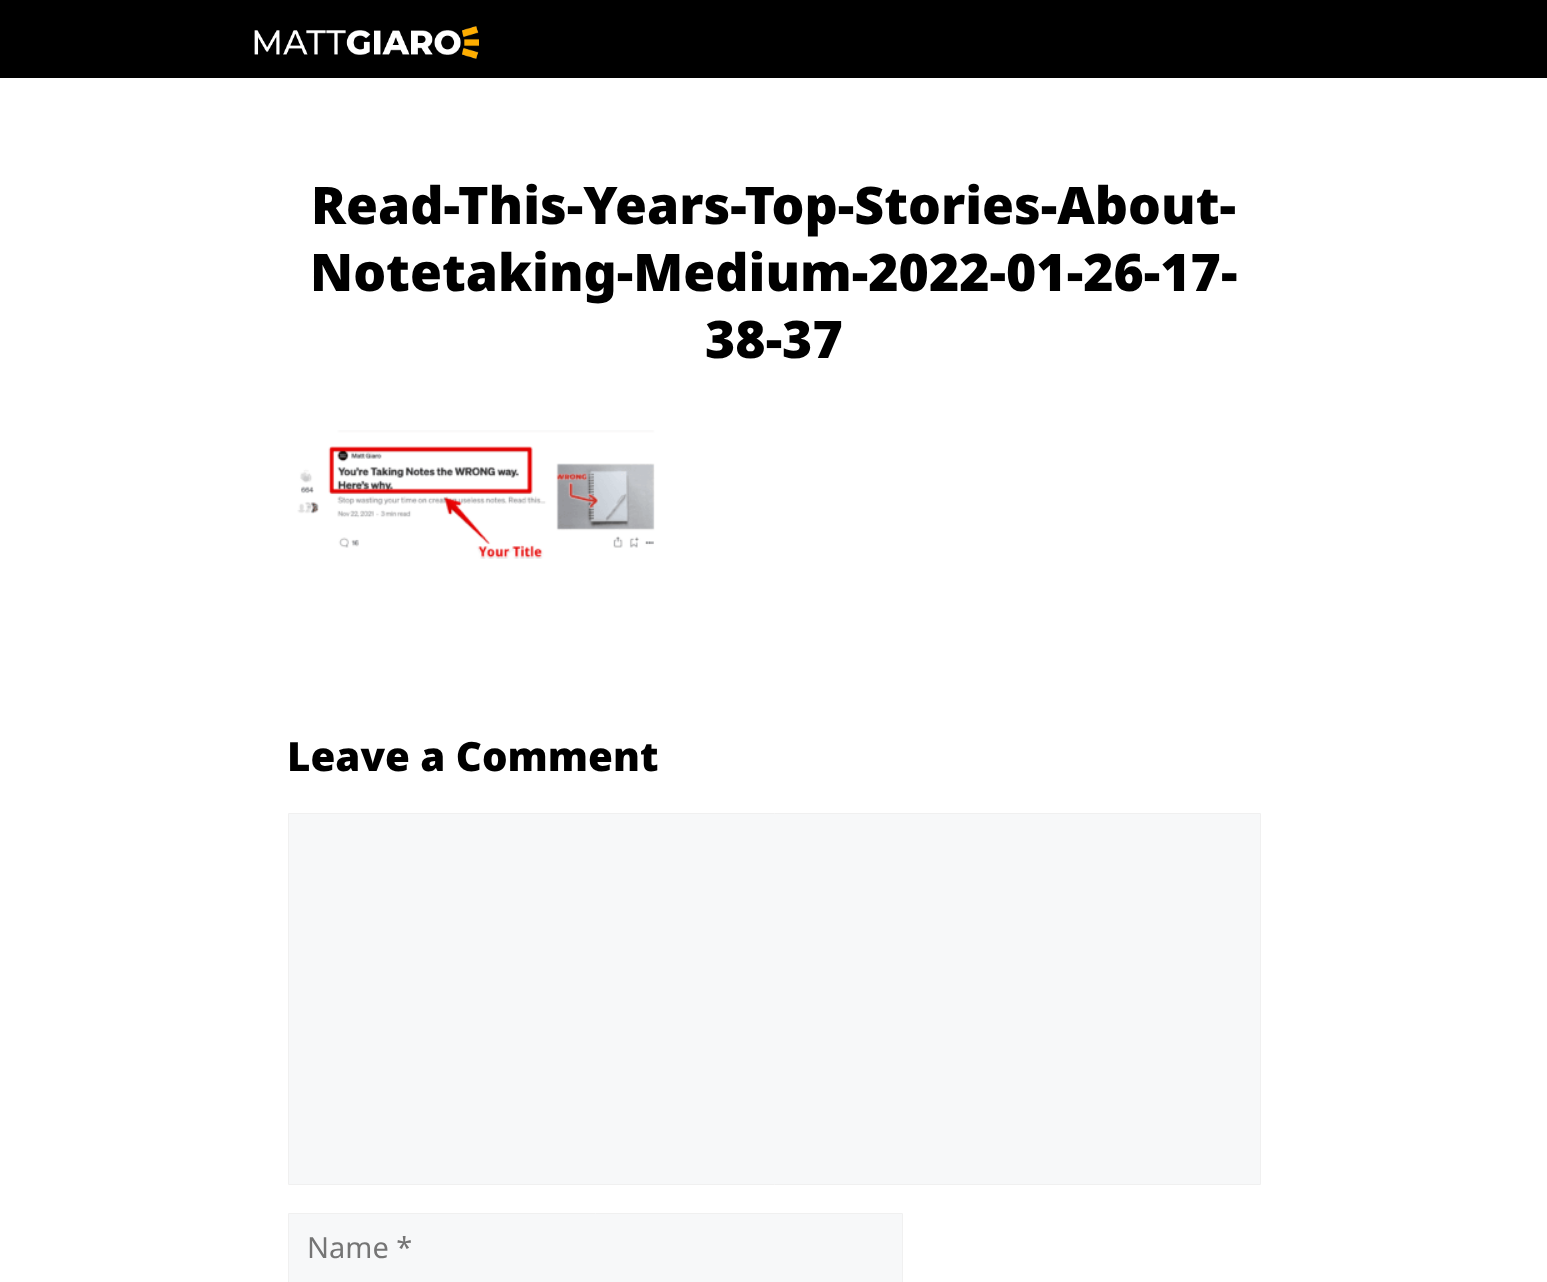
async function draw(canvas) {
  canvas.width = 1547;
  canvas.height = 1282;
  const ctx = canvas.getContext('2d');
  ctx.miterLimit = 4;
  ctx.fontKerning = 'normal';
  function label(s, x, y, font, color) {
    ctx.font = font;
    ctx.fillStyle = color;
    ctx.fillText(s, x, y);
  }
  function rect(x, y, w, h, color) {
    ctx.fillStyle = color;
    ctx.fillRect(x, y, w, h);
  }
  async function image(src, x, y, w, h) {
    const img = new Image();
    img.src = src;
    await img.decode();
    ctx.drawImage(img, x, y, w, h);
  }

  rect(0, 0, 1547, 1282, '#fff');
  rect(0, 0, 1547, 78, '#000');
  await image('assets/img1.png', 254, 26, 225, 33);
  label('Read-This-Years-Top-Stories-About-', 311, 224, '900 51.75px Noto Sans', '#000');
  label('Notetaking-Medium-2022-01-26-17-', 310, 291, '900 51.75px Noto Sans', '#000');
  label('38-37', 705, 358, '900 51.75px Noto Sans', '#000');
  await image('assets/img2.png', 297, 430, 358, 129);
  label('Leave a Comment', 287, 771, '900 40.25px Noto Sans', '#000');
  ctx.fillStyle = '#f7f8f9';
  ctx.beginPath();
  ctx.rect(288.5, 813.5, 972, 371);
  ctx.fill();
  ctx.strokeStyle = '#f0f0f0';
  ctx.stroke();
  ctx.beginPath();
  ctx.rect(288.5, 1213.5, 614, 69);
  ctx.fill();
  ctx.stroke();
  label('Name *', 307, 1258, '29px Noto Sans', '#757575');
}

draw(document.querySelector('canvas'));
